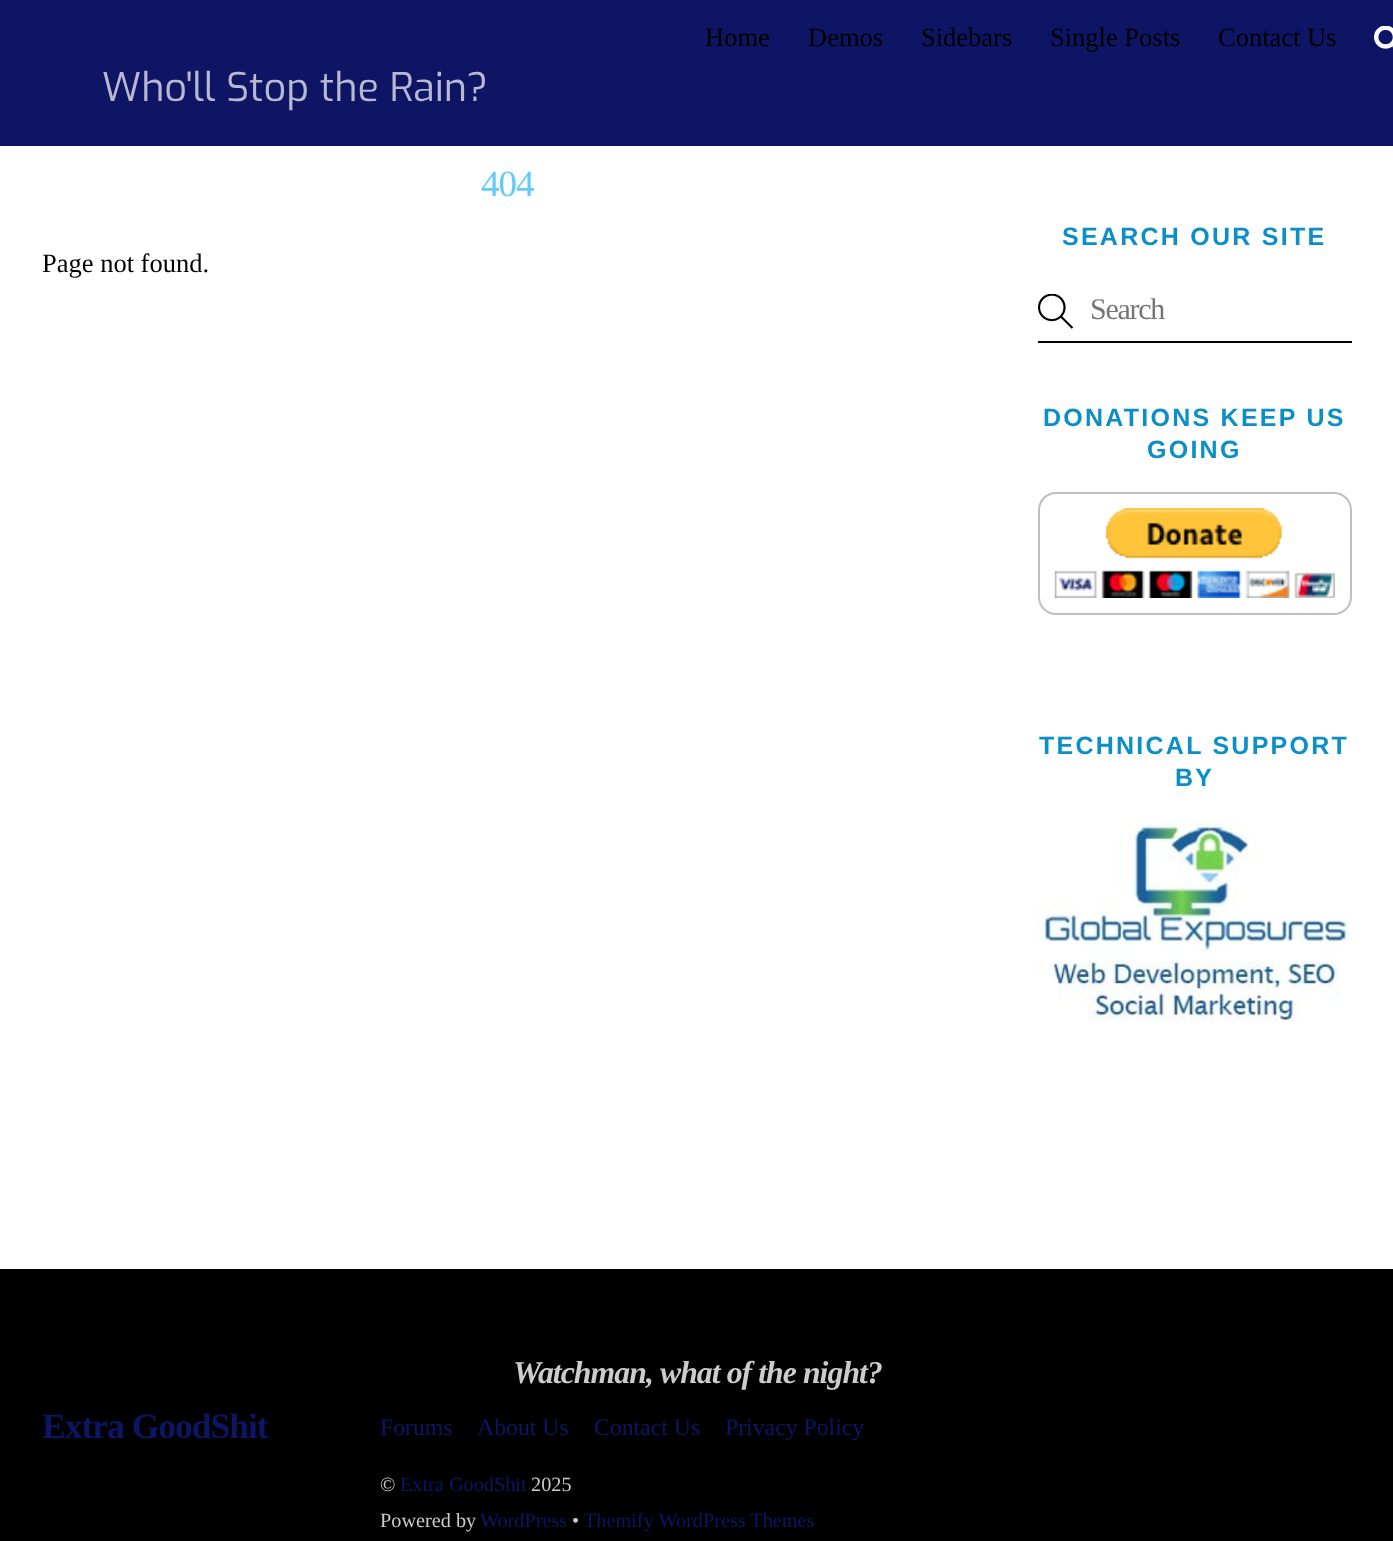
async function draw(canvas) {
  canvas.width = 1393;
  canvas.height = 1541;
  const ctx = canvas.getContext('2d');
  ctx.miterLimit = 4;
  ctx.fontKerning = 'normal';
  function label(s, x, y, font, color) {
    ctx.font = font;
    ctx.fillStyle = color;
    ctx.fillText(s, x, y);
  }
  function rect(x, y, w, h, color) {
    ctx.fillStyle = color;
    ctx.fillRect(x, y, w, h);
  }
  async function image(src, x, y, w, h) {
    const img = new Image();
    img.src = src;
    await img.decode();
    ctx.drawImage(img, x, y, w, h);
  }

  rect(0, 0, 1393, 1541, '#fff');
  rect(0, 0, 1393, 144, '#0e1565');
  rect(0, 144, 1393, 2, '#0d1460');
  label('Home', 705, 46, '26.5px Liberation Serif', '#000');
  label('Demos', 808, 46, '26.5px Liberation Serif', '#000');
  label('Sidebars', 921, 46, '26.5px Liberation Serif', '#000');
  label('Single Posts', 1050, 46, '26.5px Liberation Serif', '#000');
  label('Contact Us', 1218, 46, '26.5px Liberation Serif', '#000');
  await image('assets/img1.png', 1374, 26, 19, 23);
  label('Who\'ll Stop the Rain?', 102, 101, '39.5px Exo', '#b7b9d1');
  ctx.letterSpacing = '-1px';
  label('404', 481, 196, '37px Liberation Serif', '#60ccf7');
  ctx.letterSpacing = '0px';
  label('Page not found.', 42, 272, '26.5px Liberation Serif', '#000');
  ctx.letterSpacing = '2.25px';
  label('SEARCH OUR SITE', 1062, 245, 'bold 25px Liberation Sans', '#0c8fc7');
  rect(1038, 341, 314, 2, '#000');
  await image('assets/img2.png', 1038, 294, 36, 35);
  ctx.letterSpacing = '-1.25px';
  label('Search', 1090, 319, '30px Liberation Serif', '#757575');
  ctx.letterSpacing = '2.25px';
  label('DONATIONS KEEP US', 1043, 426, 'bold 25px Liberation Sans', '#0c8fc7');
  label('GOING', 1147, 458, 'bold 25px Liberation Sans', '#0c8fc7');
  ctx.beginPath();
  ctx.roundRect(1039, 493, 312, 121, 17);
  ctx.strokeStyle = '#bfbfbf';
  ctx.lineWidth = 2;
  ctx.stroke();
  await image('assets/img3.png', 1054, 508, 281, 90);
  label('TECHNICAL SUPPORT', 1039, 754, 'bold 25px Liberation Sans', '#0c8fc7');
  label('BY', 1175, 786, 'bold 25px Liberation Sans', '#0c8fc7');
  await image('assets/img4.png', 1038, 820, 314, 201);
  rect(0, 1269, 1393, 272, '#000');
  ctx.letterSpacing = '-0.95px';
  label('Watchman, what of the night?', 513, 1383, 'italic bold 31.75px Liberation Serif', '#ccc');
  ctx.letterSpacing = '-1px';
  label('Extra GoodShit', 42, 1438, 'bold 35.5px Liberation Serif', '#0e1565');
  ctx.letterSpacing = '0px';
  label('Forums', 380, 1435, '23.75px Liberation Serif', '#0e1565');
  label('About Us', 477, 1435, '23.75px Liberation Serif', '#0e1565');
  label('Contact Us', 594, 1435, '23.75px Liberation Serif', '#0e1565');
  label('Privacy Policy', 725, 1435, '23.75px Liberation Serif', '#0e1565');
  label('©', 380, 1491, '20.25px Liberation Serif', '#ccc');
  label('Extra GoodShit', 400, 1491, '20.25px Liberation Serif', '#0e1565');
  label('2025', 531, 1491, '20.25px Liberation Serif', '#ccc');
  label('Powered by', 380, 1527, '20.25px Liberation Serif', '#ccc');
  label('WordPress', 480, 1527, '20.25px Liberation Serif', '#0e1565');
  label('•', 572, 1527, '20.25px Liberation Serif', '#ccc');
  label('Themify WordPress Themes', 584, 1527, '20.25px Liberation Serif', '#0e1565');
}

draw(document.querySelector('canvas'));
